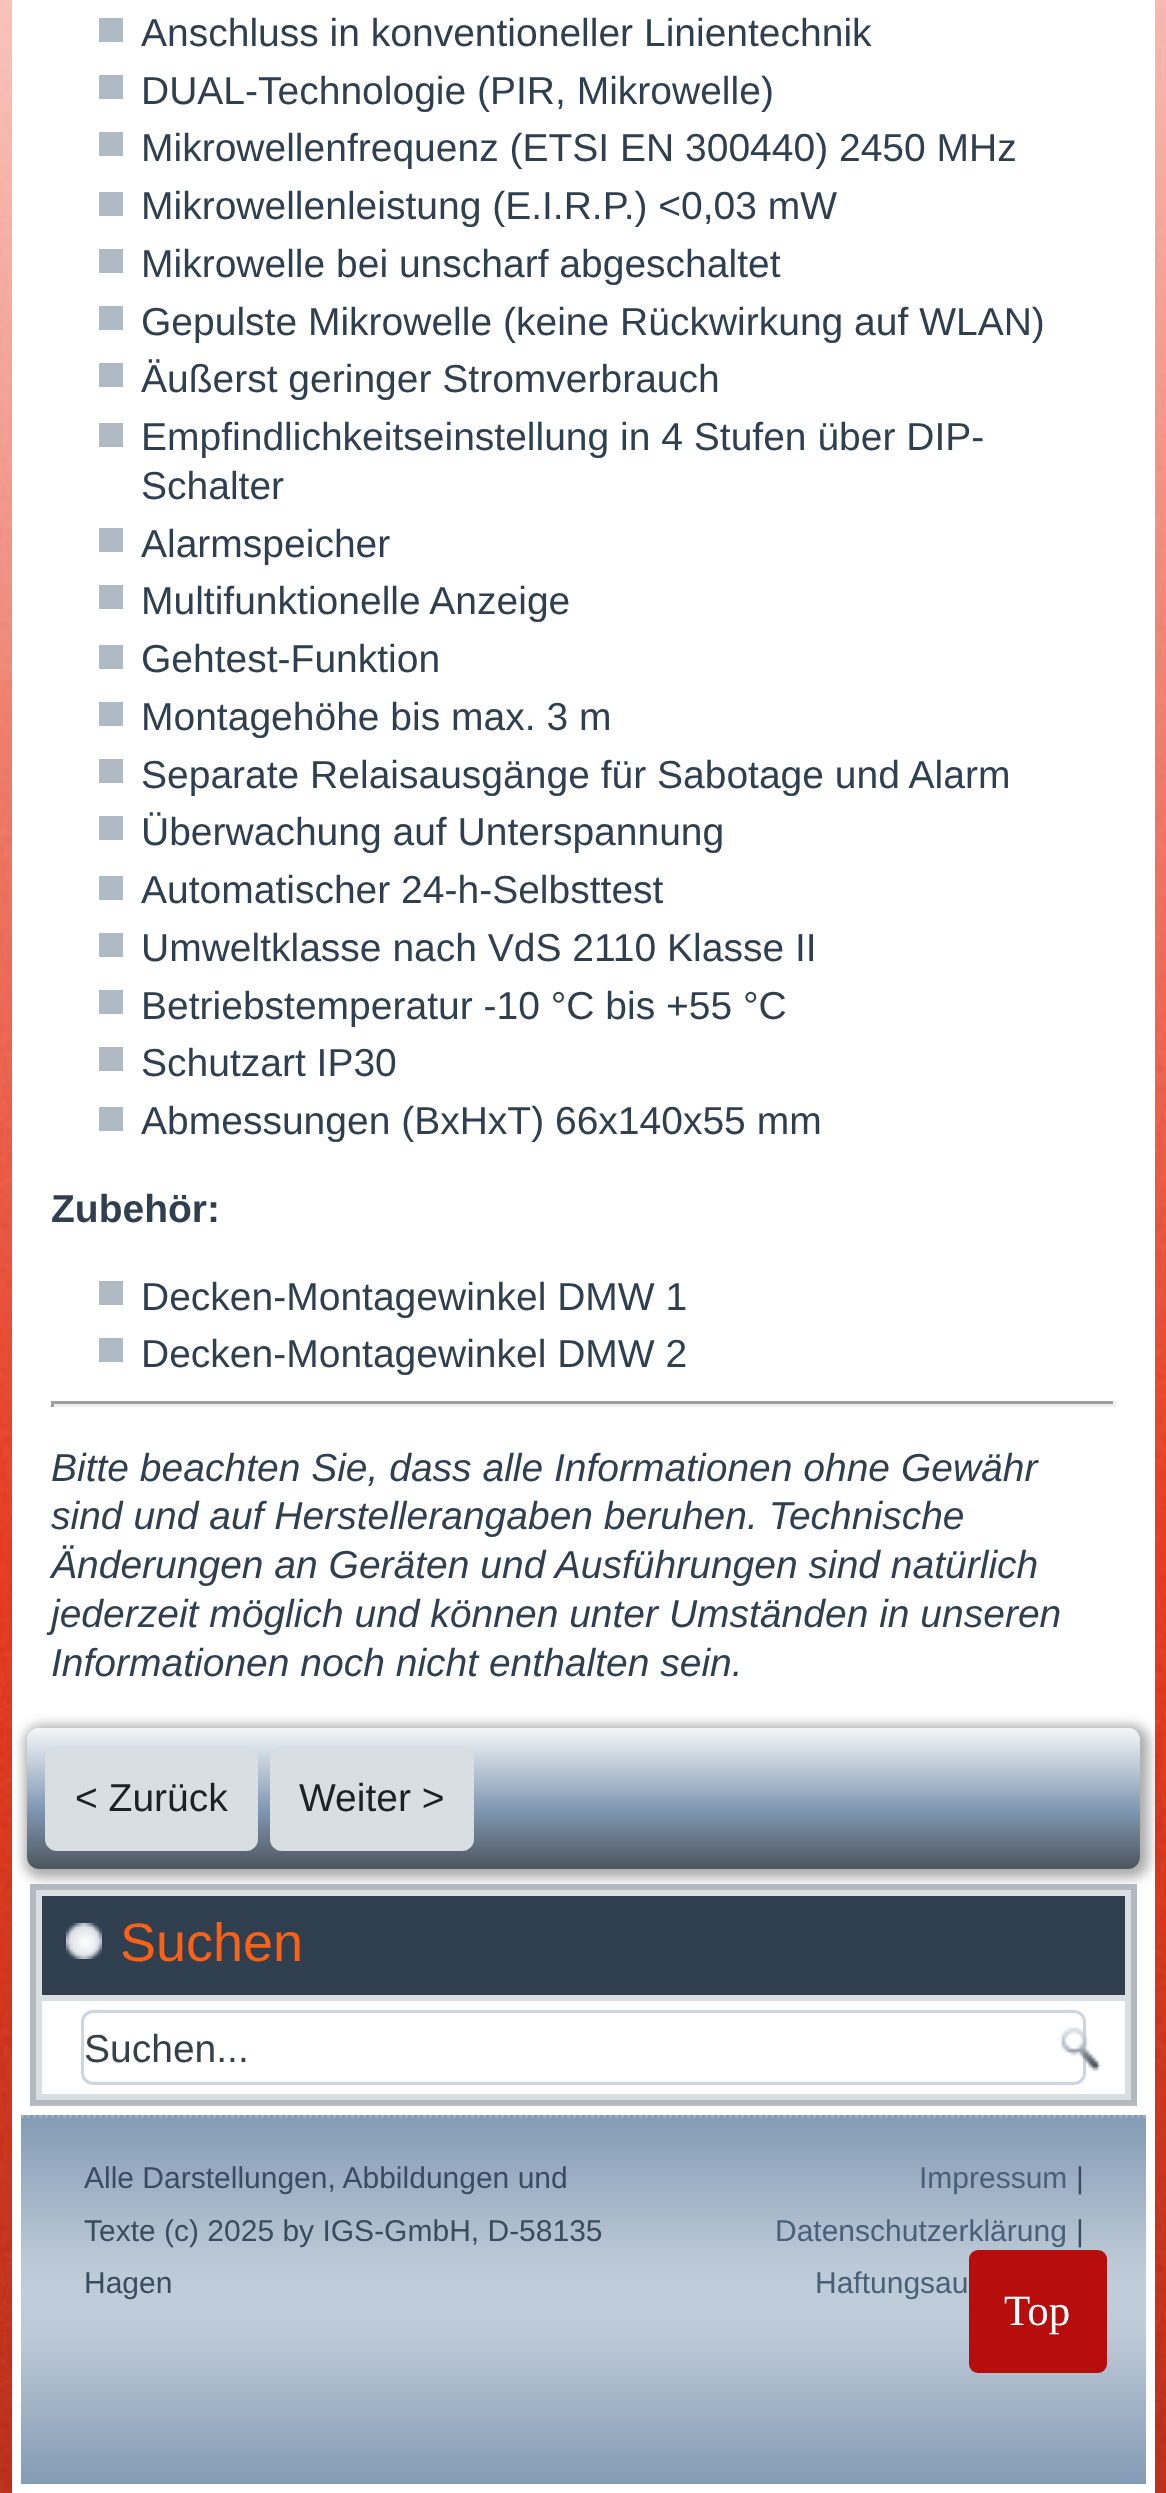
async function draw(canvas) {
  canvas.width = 1166;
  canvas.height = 2493;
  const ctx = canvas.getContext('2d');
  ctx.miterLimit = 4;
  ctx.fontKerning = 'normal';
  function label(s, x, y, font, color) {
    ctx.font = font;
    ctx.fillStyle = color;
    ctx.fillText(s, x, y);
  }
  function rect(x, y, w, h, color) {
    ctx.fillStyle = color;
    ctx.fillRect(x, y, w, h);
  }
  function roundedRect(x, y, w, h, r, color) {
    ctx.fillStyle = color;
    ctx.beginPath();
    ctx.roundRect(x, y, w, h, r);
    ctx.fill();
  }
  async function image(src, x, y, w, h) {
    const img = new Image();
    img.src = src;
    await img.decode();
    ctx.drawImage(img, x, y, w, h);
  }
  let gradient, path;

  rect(0, 0, 1166, 2493, '#fff');
  await image('assets/img1.png', 0, 0, 1166, 2493);
  rect(12, 0, 1143, 2493, '#fff');
  rect(99, 18, 24, 24, '#b0bac4');
  label('Anschluss in konventioneller Linientechnik', 141, 46, '39px Liberation Sans', '#303f50');
  rect(99, 75, 24, 24, '#b0bac4');
  label('DUAL-Technologie (PIR, Mikrowelle)', 141, 104, '39px Liberation Sans', '#303f50');
  rect(99, 132, 24, 24, '#b0bac4');
  label('Mikrowellenfrequenz (ETSI EN 300440) 2450 MHz', 141, 161, '39px Liberation Sans', '#303f50');
  rect(99, 192, 24, 24, '#b0bac4');
  label('Mikrowellenleistung (E.I.R.P.) <0,03 mW', 141, 219, '39px Liberation Sans', '#303f50');
  rect(99, 249, 24, 24, '#b0bac4');
  label('Mikrowelle bei unscharf abgeschaltet', 141, 277, '39px Liberation Sans', '#303f50');
  rect(99, 306, 24, 24, '#b0bac4');
  label('Gepulste Mikrowelle (keine Rückwirkung auf WLAN)', 141, 335, '39px Liberation Sans', '#303f50');
  rect(99, 363, 24, 24, '#b0bac4');
  label('Äußerst geringer Stromverbrauch', 141, 392, '39px Liberation Sans', '#303f50');
  rect(99, 423, 24, 24, '#b0bac4');
  label('Empﬁndlichkeitseinstellung in 4 Stufen über DIP-', 141, 450, '39px Liberation Sans', '#303f50');
  label('Schalter', 141, 499, '39px Liberation Sans', '#303f50');
  rect(99, 528, 24, 24, '#b0bac4');
  label('Alarmspeicher', 141, 557, '39px Liberation Sans', '#303f50');
  rect(99, 585, 24, 24, '#b0bac4');
  label('Multifunktionelle Anzeige', 141, 614, '39px Liberation Sans', '#303f50');
  rect(99, 645, 24, 24, '#b0bac4');
  label('Gehtest-Funktion', 141, 672, '39px Liberation Sans', '#303f50');
  rect(99, 702, 24, 24, '#b0bac4');
  label('Montagehöhe bis max. 3 m', 141, 730, '39px Liberation Sans', '#303f50');
  rect(99, 759, 24, 24, '#b0bac4');
  label('Separate Relaisausgänge für Sabotage und Alarm', 141, 788, '39px Liberation Sans', '#303f50');
  rect(99, 816, 24, 24, '#b0bac4');
  label('Überwachung auf Unterspannung', 141, 845, '39px Liberation Sans', '#303f50');
  rect(99, 876, 24, 24, '#b0bac4');
  label('Automatischer 24-h-Selbsttest', 141, 903, '39px Liberation Sans', '#303f50');
  rect(99, 933, 24, 24, '#b0bac4');
  label('Umweltklasse nach VdS 2110 Klasse II', 141, 961, '39px Liberation Sans', '#303f50');
  rect(99, 990, 24, 24, '#b0bac4');
  label('Betriebstemperatur -10 °C bis +55 °C', 141, 1019, '39px Liberation Sans', '#303f50');
  rect(99, 1047, 24, 24, '#b0bac4');
  label('Schutzart IP30', 141, 1076, '39px Liberation Sans', '#303f50');
  rect(99, 1107, 24, 24, '#b0bac4');
  label('Abmessungen (BxHxT) 66x140x55 mm', 141, 1134, '39px Liberation Sans', '#303f50');
  label('Zubehör:', 51, 1222, 'bold 39px Liberation Sans', '#303f50');
  rect(99, 1281, 24, 24, '#b0bac4');
  label('Decken-Montagewinkel DMW 1', 141, 1310, '39px Liberation Sans', '#303f50');
  rect(99, 1338, 24, 24, '#b0bac4');
  label('Decken-Montagewinkel DMW 2', 141, 1367, '39px Liberation Sans', '#303f50');
  rect(51, 1401, 1065, 3, '#9f9f9f');
  rect(1113, 1401, 3, 6, '#eee');
  rect(51, 1404, 1065, 3, '#eee');
  rect(51, 1401, 3, 6, '#9f9f9f');
  label('Bitte beachten Sie, dass alle Informationen ohne Gewähr', 51, 1481, 'italic 39px Liberation Sans', '#303f50');
  label('sind und auf Herstellerangaben beruhen. Technische', 51, 1529, 'italic 39px Liberation Sans', '#303f50');
  label('Änderungen an Geräten und Ausführungen sind natürlich', 51, 1578, 'italic 39px Liberation Sans', '#303f50');
  label('jederzeit möglich und können unter Umständen in unseren', 51, 1627, 'italic 39px Liberation Sans', '#303f50');
  label('Informationen noch nicht enthalten sein.', 51, 1676, 'italic 39px Liberation Sans', '#303f50');
  ctx.save();
  path = new Path2D('M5 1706H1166V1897H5ZM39 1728H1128C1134.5 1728 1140 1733.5 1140 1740V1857C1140 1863.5 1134.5 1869 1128 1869H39C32.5 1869 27 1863.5 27 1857V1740C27 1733.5 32.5 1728 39 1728Z');
  ctx.clip(path, 'evenodd');
  ctx.fillStyle = '#00000052';
  ctx.filter = 'blur(6px)';
  ctx.beginPath();
  ctx.roundRect(24, 1725, 1125, 153, 18);
  ctx.fill();
  ctx.filter = 'none';
  ctx.restore();
  gradient = ctx.createLinearGradient(584, 1728, 584, 1869);
  gradient.addColorStop(0, '#f2f5f7cc');
  gradient.addColorStop(0.58, '#607e9fcc');
  gradient.addColorStop(1, '#212b36cc');
  ctx.fillStyle = gradient;
  ctx.beginPath();
  ctx.roundRect(27, 1728, 1113, 141, 12);
  ctx.fill();
  roundedRect(45, 1746, 213, 105, 12, '#d9dee3');
  label('< Zurück', 75, 1811, '39px Liberation Sans', '#1c2126');
  roundedRect(270, 1746, 204, 105, 12, '#d9dee3');
  label('Weiter >', 299, 1811, '39px Liberation Sans', '#1c2126');
  ctx.fillStyle = '#d9dee3';
  ctx.beginPath();
  ctx.rect(33, 1887, 1101, 216);
  ctx.fill();
  ctx.strokeStyle = '#b3b9bf';
  ctx.lineWidth = 6;
  ctx.stroke();
  rect(42, 1896, 1083, 99, '#303f50');
  await image('assets/img2.png', 66, 1923, 36, 36);
  label('Suchen', 120, 1961, '54px Liberation Sans', '#fa6114');
  rect(42, 2001, 1083, 93, '#fff');
  ctx.beginPath();
  ctx.roundRect(82.5, 2011.5, 1002, 72, 10.5);
  ctx.strokeStyle = '#ccd6e0';
  ctx.lineWidth = 3;
  ctx.stroke();
  label('Suchen...', 84, 2062, '39px Liberation Sans', '#364049');
  await image('assets/img3.png', 1059, 2027, 43, 44);
  gradient = ctx.createLinearGradient(584, 2115, 584, 2484);
  gradient.addColorStop(0, '#839bb4');
  gradient.addColorStop(0.4, '#bcc9d7');
  gradient.addColorStop(0.5, '#bfccd9');
  gradient.addColorStop(0.6, '#bcc9d7');
  gradient.addColorStop(1, '#839bb4');
  ctx.fillStyle = gradient;
  ctx.fillRect(21, 2115, 1125, 369);
  path = new Path2D('M21 2116.5H1146');
  ctx.strokeStyle = '#9cafc4';
  ctx.setLineDash([3, 3]);
  ctx.stroke(path);
  label('Alle Darstellungen, Abbildungen und', 84, 2188, '30px Liberation Sans', '#394c60');
  label('Texte (c) 2025 by IGS-GmbH, D-58135', 84, 2241, '30px Liberation Sans', '#394c60');
  label('Hagen', 84, 2293, '30px Liberation Sans', '#394c60');
  label('Impressum', 919, 2188, '30px Liberation Sans', '#496079');
  label('|', 1076, 2188, '30px Liberation Sans', '#394c60');
  label('Datenschutzerklärung', 775, 2241, '30px Liberation Sans', '#496079');
  label('|', 1076, 2241, '30px Liberation Sans', '#394c60');
  label('Haftungsau', 815, 2293, '30px Liberation Sans', '#496079');
  roundedRect(969, 2250, 138, 123, 9, '#b80d0d');
  label('Top', 1004, 2325, '43px Liberation Serif', '#fff');
}

draw(document.querySelector('canvas'));
